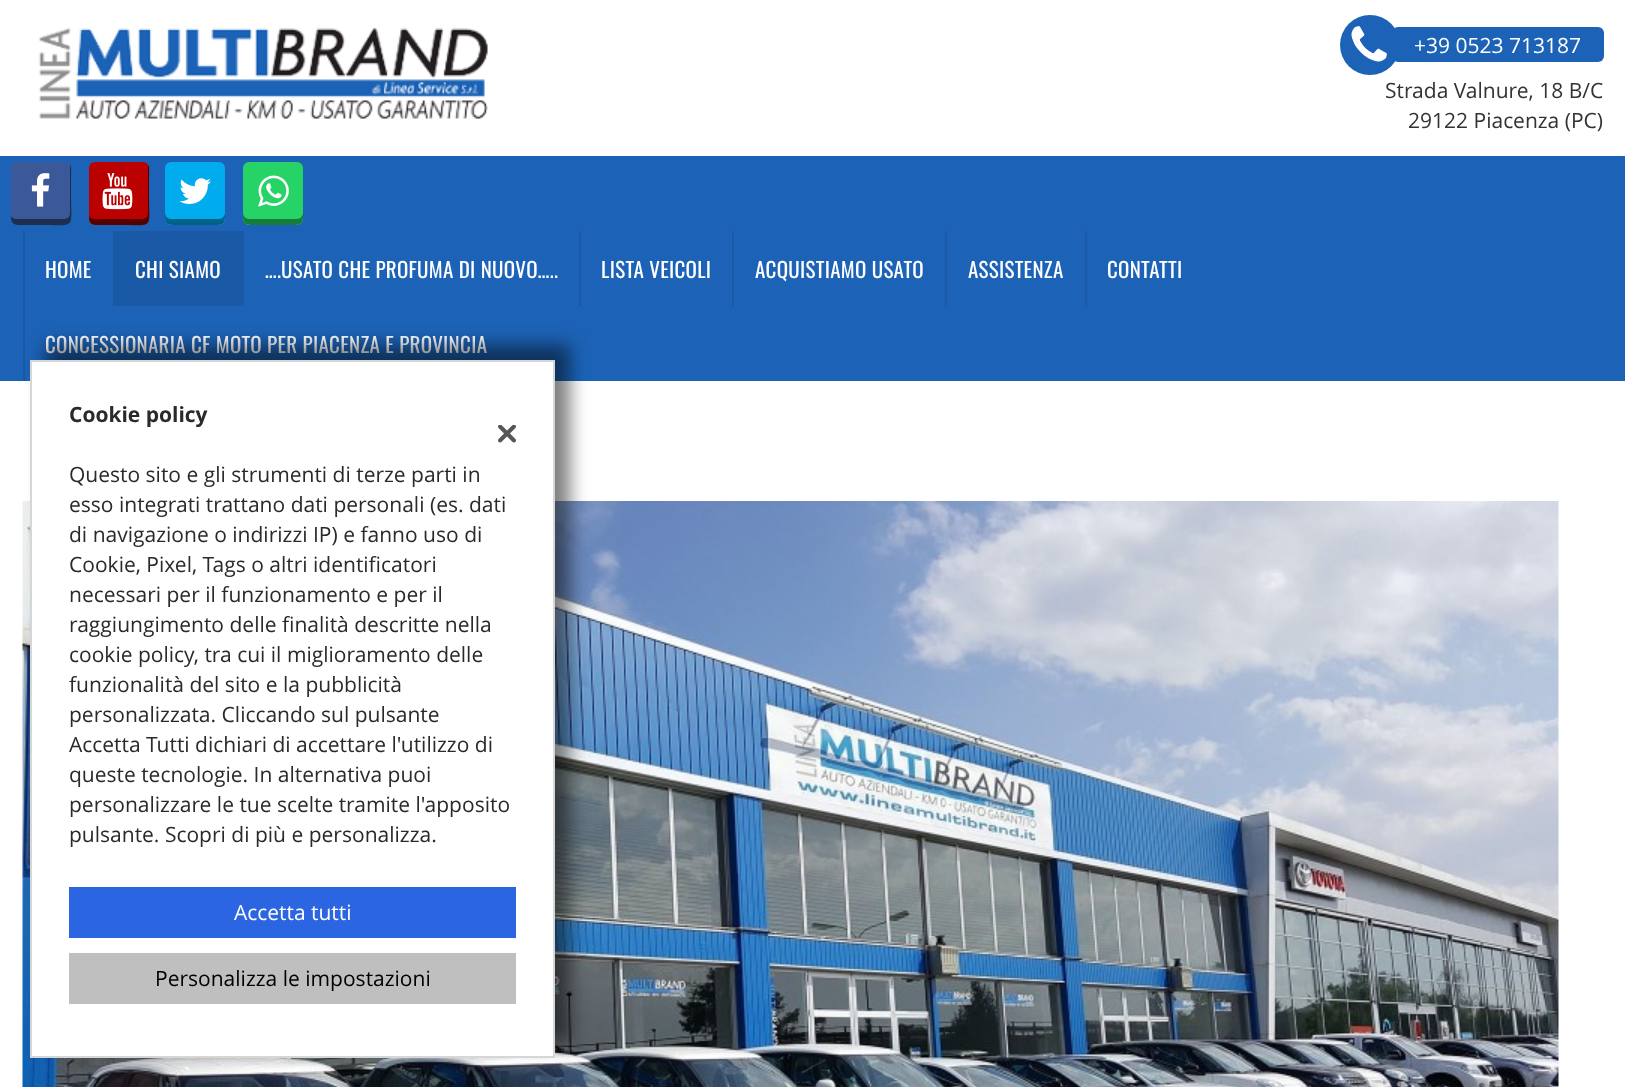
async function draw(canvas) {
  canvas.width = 1625;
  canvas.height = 1087;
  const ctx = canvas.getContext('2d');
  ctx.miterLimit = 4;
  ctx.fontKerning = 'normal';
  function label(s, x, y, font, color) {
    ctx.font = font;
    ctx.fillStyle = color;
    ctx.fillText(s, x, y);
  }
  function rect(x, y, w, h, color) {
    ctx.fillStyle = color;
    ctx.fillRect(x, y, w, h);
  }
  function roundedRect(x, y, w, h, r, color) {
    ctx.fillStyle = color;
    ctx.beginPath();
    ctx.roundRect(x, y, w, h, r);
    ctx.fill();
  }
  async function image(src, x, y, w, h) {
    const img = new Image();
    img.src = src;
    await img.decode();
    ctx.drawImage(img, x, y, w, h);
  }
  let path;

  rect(0, 0, 1625, 1087, '#fff');
  await image('assets/img1.png', 38, 27, 450, 92);
  ctx.fillStyle = '#1c63b7';
  ctx.beginPath();
  ctx.arc(1370, 45, 30, 0, 2 * Math.PI);
  ctx.fill();
  await image('assets/img2.png', 1351, 26, 36, 36);
  roundedRect(1392, 27, 212, 35, 6, '#1c63b7');
  label('+39 0523 713187', 1414, 53, '21px Open Sans', '#fff');
  label('Strada Valnure, 18 B/C', 1385, 98, '21px Open Sans', '#333');
  label('29122 Piacenza (PC)', 1408, 128, '21px Open Sans', '#333');
  rect(0, 156, 1625, 225, '#1c63b7');
  roundedRect(11, 162, 60, 63, 6, '#3b5998');
  ctx.fillStyle = '#1e2e4f';
  path = new Path2D('M11 216C11 226 16 225 25 225H41C77 225 71 230 71 194V176C71 174 72 168 70 165V213C70 216 68 219 64 219H16C14 219 12 218 11 216Z');
  ctx.fill(path);
  await image('assets/img3.png', 31, 173, 19, 34);
  roundedRect(89, 162, 60, 63, 6, '#b00');
  ctx.fillStyle = '#500';
  path = new Path2D('M89 216C89 226 94 225 103 225H119C155 225 149 230 149 194V176C149 174 150 168 148 165V213C148 216 146 219 142 219H94C92 219 90 218 89 216Z');
  ctx.fill(path);
  await image('assets/img4.png', 102, 173, 31, 37);
  roundedRect(165, 162, 60, 63, 6, '#00aced');
  ctx.fillStyle = '#006287';
  path = new Path2D('M165 213C165 225 166 225 179 225H211C224 225 225 225 225 213C225 216 222 219 219 219H171C168 219 165 216 165 213Z');
  ctx.fill(path);
  await image('assets/img5.png', 179, 178, 32, 26);
  roundedRect(243, 162, 60, 63, 6, '#25d366');
  ctx.fillStyle = '#167c3c';
  path = new Path2D('M243 213C243 225 244 225 257 225H289C302 225 303 225 303 213C303 216 300 219 297 219H249C246 219 243 216 243 213Z');
  ctx.fill(path);
  await image('assets/img6.png', 258, 175, 31, 32);
  rect(23, 231, 2, 150, '#1959a5');
  ctx.letterSpacing = '0.3px';
  label('HOME', 45, 278, '21px Oswald', '#fff');
  rect(113, 231, 131, 75, '#1959a5');
  label('CHI SIAMO', 135, 278, '21px Oswald', '#fff');
  label('….USATO CHE PROFUMA DI NUOVO…..', 265, 278, '21px Oswald', '#fff');
  rect(579, 231, 2, 75, '#1959a5');
  label('LISTA VEICOLI', 601, 278, '21px Oswald', '#fff');
  rect(732, 231, 2, 75, '#1959a5');
  label('ACQUISTIAMO USATO', 755, 278, '21px Oswald', '#fff');
  rect(945, 231, 2, 75, '#1959a5');
  label('ASSISTENZA', 968, 278, '21px Oswald', '#fff');
  rect(1085, 231, 2, 75, '#1959a5');
  label('CONTATTI', 1107, 278, '21px Oswald', '#fff');
  label('CONCESSIONARIA CF MOTO PER PIACENZA E PROVINCIA', 45, 353, '21px Oswald', '#fff');
  await image('assets/img7.png', 22, 501, 1537, 586);
  ctx.fillStyle = '#00000080';
  ctx.filter = 'blur(9px)';
  ctx.beginPath();
  ctx.rect(45, 345, 525, 698);
  ctx.fill();
  ctx.filter = 'none';
  ctx.fillStyle = '#fff';
  ctx.beginPath();
  ctx.rect(31, 361, 523, 696);
  ctx.fill();
  ctx.strokeStyle = '#d6d6d6';
  ctx.lineWidth = 2;
  ctx.stroke();
  ctx.letterSpacing = '0px';
  label('Cookie policy', 69, 422, 'bold 21px Open Sans', '#2b2929');
  label('Questo sito e gli strumenti di terze parti in', 69, 482, '21px Open Sans', '#2b2929');
  label('esso integrati trattano dati personali (es. dati', 69, 512, '21px Open Sans', '#2b2929');
  label('di navigazione o indirizzi IP) e fanno uso di', 69, 542, '21px Open Sans', '#2b2929');
  label('Cookie, Pixel, Tags o altri identificatori', 69, 572, '21px Open Sans', '#2b2929');
  label('necessari per il funzionamento e per il', 69, 602, '21px Open Sans', '#2b2929');
  label('raggiungimento delle finalità descritte nella', 69, 632, '21px Open Sans', '#2b2929');
  label('cookie policy, tra cui il miglioramento delle', 69, 662, '21px Open Sans', '#2b2929');
  label('funzionalità del sito e la pubblicità', 69, 692, '21px Open Sans', '#2b2929');
  label('personalizzata. Cliccando sul pulsante', 69, 722, '21px Open Sans', '#2b2929');
  label('Accetta Tutti dichiari di accettare l\'utilizzo di', 69, 752, '21px Open Sans', '#2b2929');
  label('queste tecnologie. In alternativa puoi', 69, 782, '21px Open Sans', '#2b2929');
  label('personalizzare le tue scelte tramite l\'apposito', 69, 812, '21px Open Sans', '#2b2929');
  label('pulsante. Scopri di più e personalizza.', 69, 842, '21px Open Sans', '#2b2929');
  await image('assets/img8.png', 498, 425, 18, 18);
  rect(69, 887, 447, 51, '#2c65e1');
  label('Accetta tutti', 234, 920, '21px Open Sans', '#fff');
  rect(69, 953, 447, 51, '#bfbfbf');
  label('Personalizza le impostazioni', 155, 986, '21px Open Sans', '#000');
}

draw(document.querySelector('canvas'));
